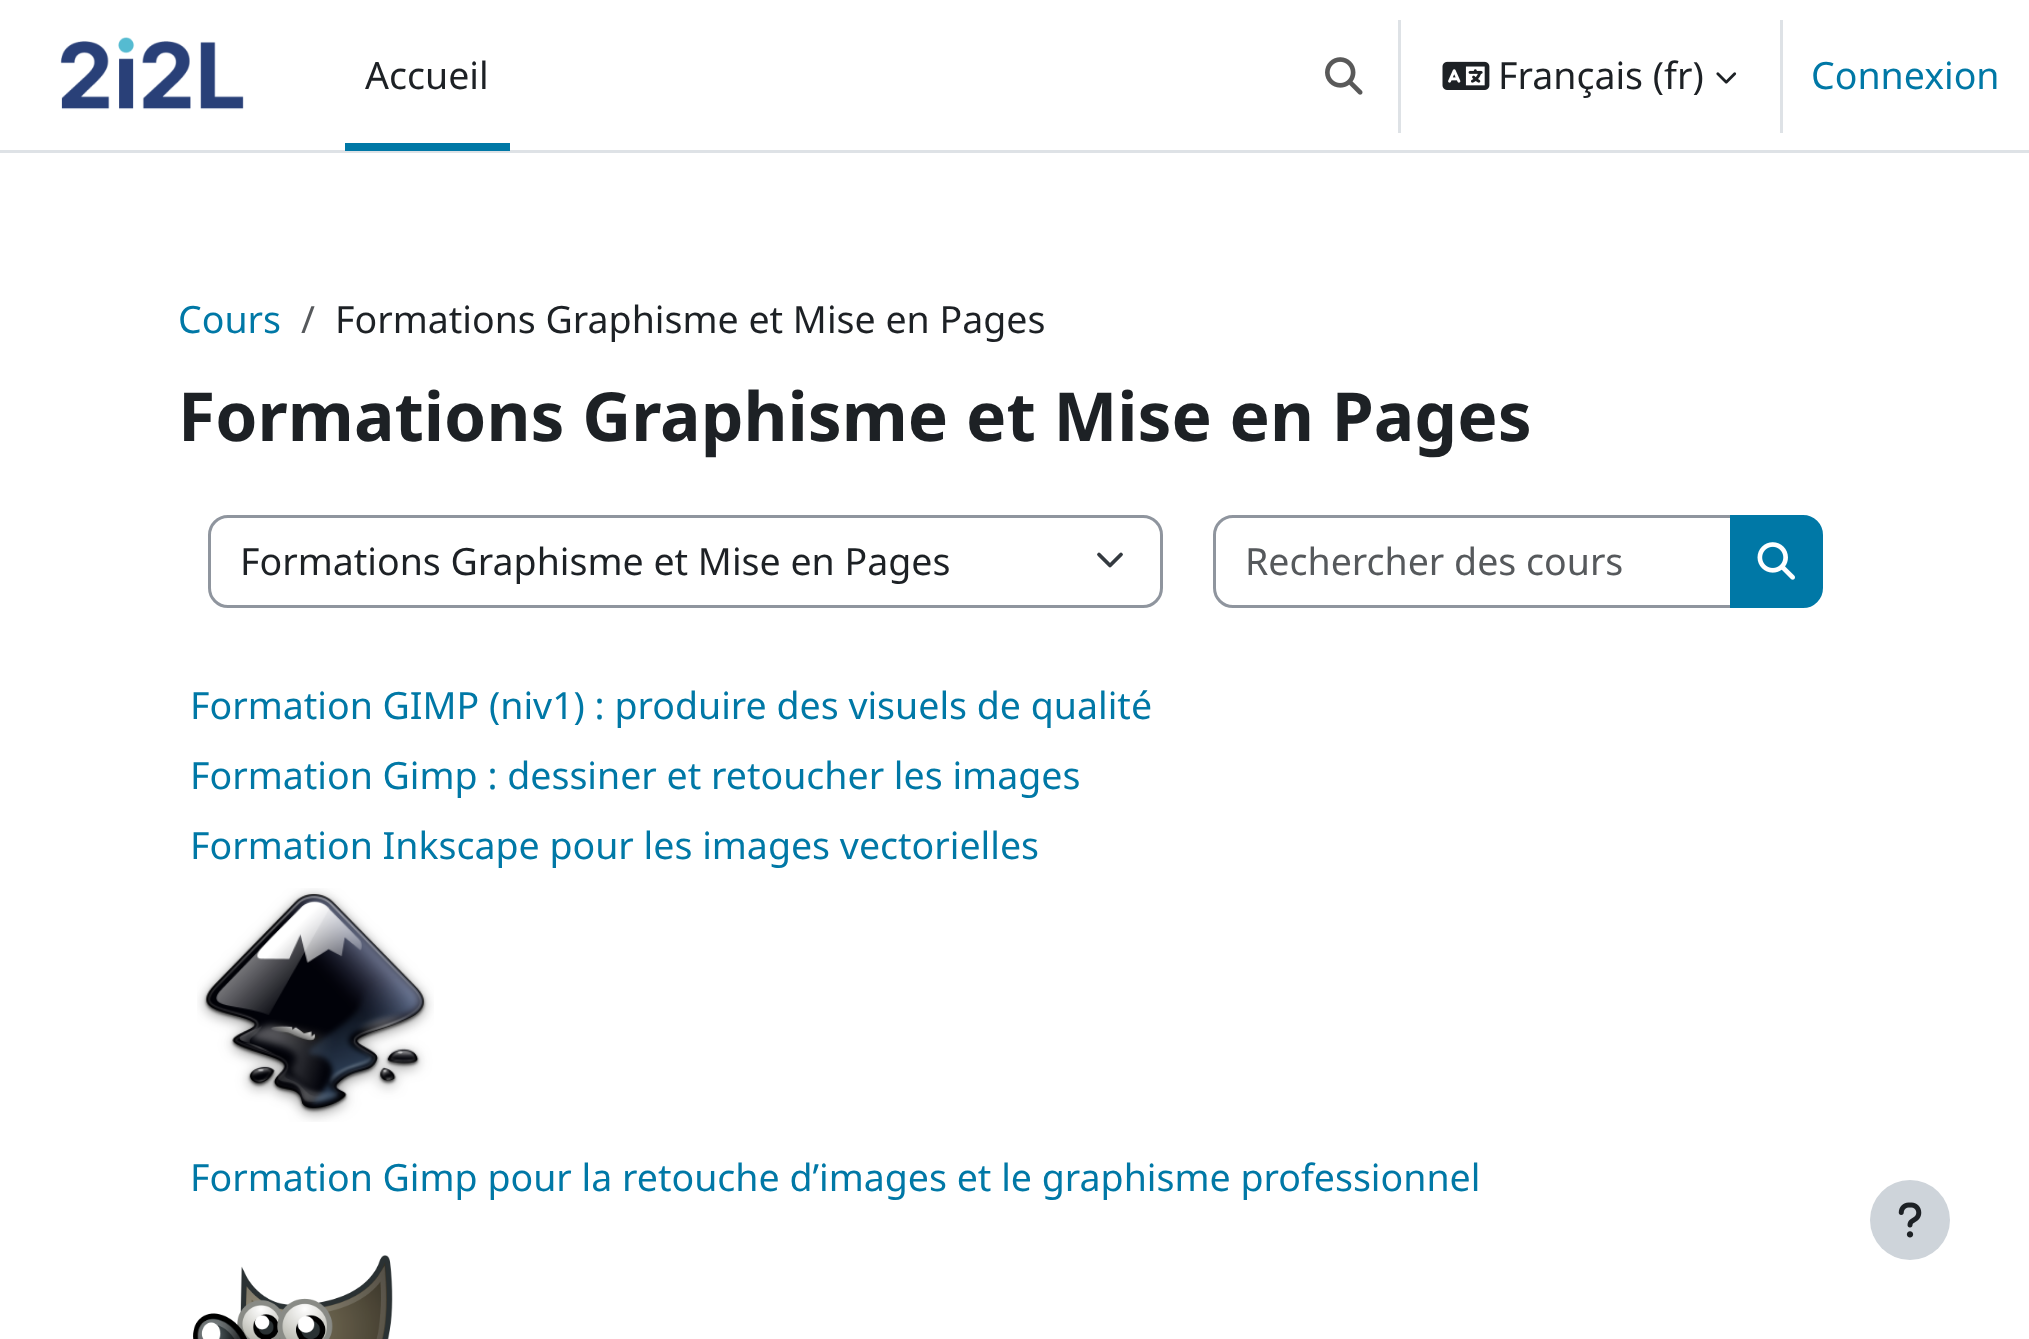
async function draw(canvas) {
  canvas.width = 2029;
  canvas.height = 1339;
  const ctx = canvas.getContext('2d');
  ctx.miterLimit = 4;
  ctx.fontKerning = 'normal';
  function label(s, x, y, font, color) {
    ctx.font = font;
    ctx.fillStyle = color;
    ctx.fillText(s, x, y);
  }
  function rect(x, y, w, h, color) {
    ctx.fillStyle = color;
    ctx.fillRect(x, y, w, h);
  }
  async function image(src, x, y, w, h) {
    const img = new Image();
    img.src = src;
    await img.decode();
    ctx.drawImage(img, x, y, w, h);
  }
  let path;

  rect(0, 0, 2029, 1339, '#fff');
  rect(0, 150, 2029, 3, '#dee2e6');
  await image('assets/img1.png', 60, 37, 184, 73);
  rect(345, 143, 165, 8, '#0078a6');
  label('Accueil', 365, 89, '37.5px Noto Sans', '#1d2125');
  await image('assets/img2.png', 1325, 57, 38, 38);
  rect(1398, 20, 3, 113, '#dee2e6');
  await image('assets/img3.png', 1442, 61, 48, 29);
  label('Français (fr)', 1498, 89, '37.5px Noto Sans', '#1d2125');
  await image('assets/img4.png', 1716, 72, 21, 12);
  rect(1780, 20, 3, 113, '#dee2e6');
  label('Connexion', 1811, 89, '37.5px Noto Sans', '#0078a6');
  label('Cours', 178, 333, '37.5px Noto Sans', '#0078a6');
  label('/', 301, 333, '37.5px Noto Sans', '#56595c');
  label('Formations Graphisme et Mise en Pages', 335, 333, '37.5px Noto Sans', '#1d2125');
  label('Formations Graphisme et Mise en Pages', 178, 441, 'bold 67.75px Noto Sans', '#1d2125');
  path = new Path2D('M1099 554.5L1110 565.5L1121 554.5');
  ctx.strokeStyle = '#343a40';
  ctx.lineWidth = 3.8;
  ctx.lineCap = 'round';
  ctx.lineJoin = 'round';
  ctx.stroke(path);
  ctx.beginPath();
  ctx.roundRect(209.5, 516.5, 952, 90, 18.5);
  ctx.strokeStyle = '#8f959e';
  ctx.lineWidth = 3;
  ctx.lineJoin = 'miter';
  ctx.stroke();
  label('Formations Graphisme et Mise en Pages', 240, 575, '37.5px Noto Sans', '#1d2125');
  ctx.beginPath();
  ctx.roundRect(1214.5, 516.5, 519, 90, [18.5, 0, 0, 18.5]);
  ctx.stroke();
  label('Rechercher des cours', 1245, 575, '37.5px Noto Sans', '#56595c');
  ctx.fillStyle = '#0078a6';
  ctx.beginPath();
  ctx.roundRect(1731.5, 516.5, 90, 90, [0, 18.5, 18.5, 0]);
  ctx.fill();
  ctx.strokeStyle = '#0078a6';
  ctx.stroke();
  await image('assets/img5.png', 1757, 542, 38, 38);
  label('Formation GIMP (niv1) : produire des visuels de qualité', 190, 719, '37.5px Noto Sans', '#0078a6');
  label('Formation Gimp : dessiner et retoucher les images', 190, 789, '37.5px Noto Sans', '#0078a6');
  label('Formation Inkscape pour les images vectorielles', 190, 859, '37.5px Noto Sans', '#0078a6');
  await image('assets/img6.png', 197, 888, 237, 234);
  label('Formation Gimp pour la retouche d’images et le graphisme professionnel', 190, 1191, '37.5px Noto Sans', '#0078a6');
  await image('assets/img7.png', 193, 1255, 200, 84);
  ctx.fillStyle = '#ced4da';
  ctx.beginPath();
  ctx.arc(1910, 1220, 40, 0, 2 * Math.PI);
  ctx.fill();
  await image('assets/img8.png', 1898, 1202, 24, 36);
}

draw(document.querySelector('canvas'));
